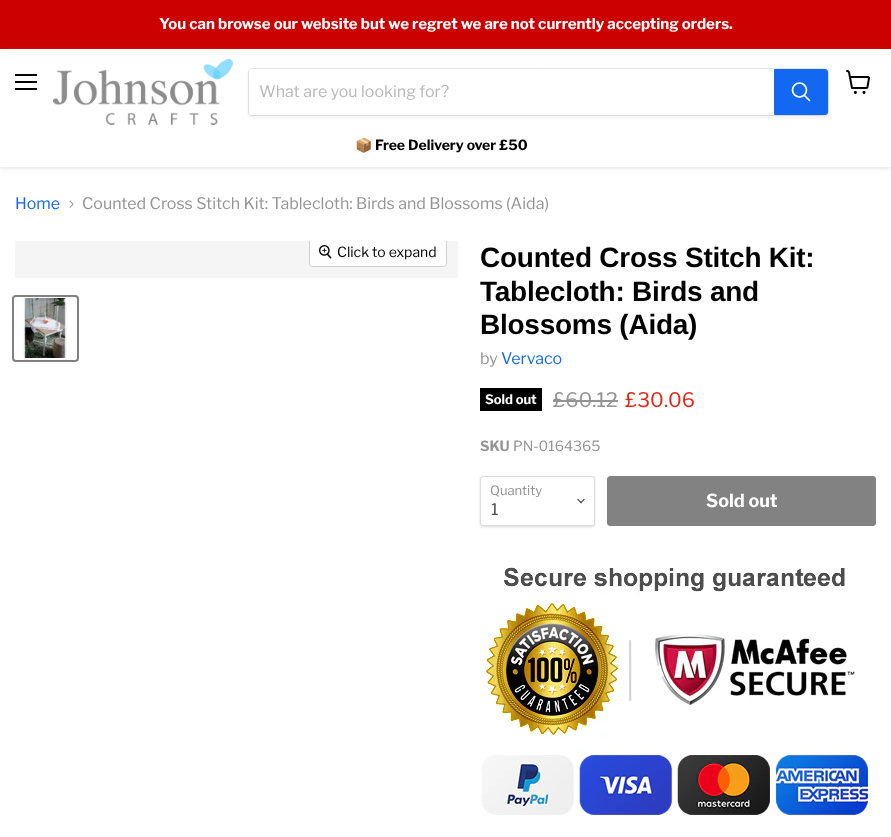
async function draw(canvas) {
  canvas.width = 891;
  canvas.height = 837;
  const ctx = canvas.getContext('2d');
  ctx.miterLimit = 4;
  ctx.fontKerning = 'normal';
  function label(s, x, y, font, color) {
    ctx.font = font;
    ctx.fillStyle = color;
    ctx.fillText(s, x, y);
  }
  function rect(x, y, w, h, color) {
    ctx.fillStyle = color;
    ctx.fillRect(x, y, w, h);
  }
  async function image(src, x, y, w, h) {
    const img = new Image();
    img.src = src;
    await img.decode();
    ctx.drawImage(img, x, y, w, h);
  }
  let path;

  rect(0, 0, 891, 837, '#fff');
  rect(0, 0, 891, 49, '#c00');
  label('You can browse our website but we regret we are not currently accepting orders.', 159, 29, 'bold 15px Libre Franklin', '#fff');
  ctx.fillStyle = '#80808040';
  ctx.filter = 'blur(2px)';
  ctx.beginPath();
  ctx.rect(0, 50, 891, 118);
  ctx.fill();
  ctx.filter = 'none';
  rect(0, 49, 891, 118, '#fff');
  rect(15, 74, 22, 2, '#000');
  rect(15, 81, 22, 2, '#000');
  rect(15, 88, 22, 2, '#000');
  await image('assets/img1.png', 846, 70, 24, 24);
  await image('assets/img2.png', 53, 59, 180, 66);
  ctx.fillStyle = '#8080801c';
  ctx.filter = 'blur(1.5px)';
  ctx.beginPath();
  ctx.roundRect(248, 70, 581, 48, 4);
  ctx.fill();
  ctx.filter = 'none';
  ctx.beginPath();
  ctx.roundRect(248.5, 68.5, 580, 47, 3.5);
  ctx.strokeStyle = '#80808033';
  ctx.stroke();
  ctx.fillStyle = '#fff';
  ctx.beginPath();
  ctx.roundRect(249, 69, 525, 46, [3, 0, 0, 3]);
  ctx.fill();
  label('What are you looking for?', 259, 97, '16px Libre Franklin', '#b8b8b8');
  ctx.fillStyle = '#1268f1';
  ctx.beginPath();
  ctx.roundRect(774.5, 69.5, 53, 45, [0, 2.5, 2.5, 0]);
  ctx.fill();
  ctx.strokeStyle = '#1268f1';
  ctx.stroke();
  path = new Path2D('M809.5 100.5L804.5 95.5');
  ctx.strokeStyle = '#fff';
  ctx.lineWidth = 1.7;
  ctx.lineCap = 'round';
  ctx.stroke(path);
  ctx.beginPath();
  ctx.arc(799.5, 90, 7, 0, 2 * Math.PI);
  ctx.stroke();
  label('📦', 355, 150, 'bold 14px Noto Color Emoji', '#000');
  label('Free Delivery over £50', 375, 150, 'bold 14px Libre Franklin', '#000');
  label('Home', 15, 209, '16px Libre Franklin', '#1268f1');
  await image('assets/img3.png', 69, 200, 5, 8);
  label('Counted Cross Stitch Kit: Tablecloth: Birds and Blossoms (Aida)', 82, 209, '16px Libre Franklin', '#949494');
  rect(15, 241, 443, 37, '#f5f5f5');
  ctx.save();
  ctx.beginPath();
  ctx.rect(15, 241, 443, 37);
  ctx.clip();
  ctx.beginPath();
  ctx.roundRect(309.5, 237.5, 137, 29, 3.5);
  ctx.strokeStyle = '#d0d0d0';
  ctx.lineWidth = 1;
  ctx.stroke();
  ctx.restore();
  ctx.fillStyle = '#ffffffe6';
  ctx.beginPath();
  ctx.roundRect(310, 241, 136, 25, [0, 0, 3, 3]);
  ctx.fill();
  await image('assets/img4.png', 319, 245, 13, 14);
  label('Click to expand', 337, 257, '14px Libre Franklin', '#000');
  ctx.beginPath();
  ctx.roundRect(13, 296, 65, 65, 3);
  ctx.strokeStyle = '#818181';
  ctx.lineWidth = 2;
  ctx.stroke();
  await image('assets/img5.png', 22, 298, 46, 60);
  ctx.letterSpacing = '-0.25px';
  label('Counted Cross Stitch Kit:', 480, 267, 'bold 28px Arimo', '#000');
  label('Tablecloth: Birds and', 480, 301, 'bold 28px Arimo', '#000');
  label('Blossoms (Aida)', 480, 334, 'bold 28px Arimo', '#000');
  ctx.letterSpacing = '0px';
  label('by', 480, 364, '16px Libre Franklin', '#949494');
  label('Vervaco', 501, 364, '16px Libre Franklin', '#1268f1');
  rect(480, 388, 62, 23, '#000');
  label('Sold out', 485, 404, 'bold 13px Libre Franklin', '#fff');
  label('£60.12', 553, 407, '20px Libre Franklin', '#949494');
  rect(553, 400, 65, 2, '#949494');
  label('£30.06', 625, 407, '20px Libre Franklin', '#e32619');
  label('SKU', 480, 451, 'bold 14px Libre Franklin', '#949494');
  label('PN-0164365', 513, 451, '14px Libre Franklin', '#949494');
  ctx.fillStyle = '#00000026';
  ctx.filter = 'blur(1px)';
  ctx.beginPath();
  ctx.roundRect(480, 477, 115, 50, 3);
  ctx.fill();
  ctx.filter = 'none';
  ctx.fillStyle = '#fff';
  ctx.beginPath();
  ctx.roundRect(480.5, 476.5, 114, 49, 2.5);
  ctx.fill();
  ctx.strokeStyle = '#ddd';
  ctx.lineWidth = 1;
  ctx.stroke();
  label('Quantity', 490, 495, '13px Libre Franklin', '#949494');
  await image('assets/img6.png', 577, 498, 8, 6);
  label('1', 491, 515, '16px Libre Franklin', '#4d4d4d');
  ctx.fillStyle = '#828282';
  ctx.beginPath();
  ctx.roundRect(607.5, 476.5, 268, 49, 2.5);
  ctx.fill();
  ctx.strokeStyle = '#828282';
  ctx.stroke();
  label('Sold out', 706, 507, 'bold 18px Libre Franklin', '#fff');
  await image('assets/img7.png', 480, 567, 390, 249);
}

draw(document.querySelector('canvas'));
